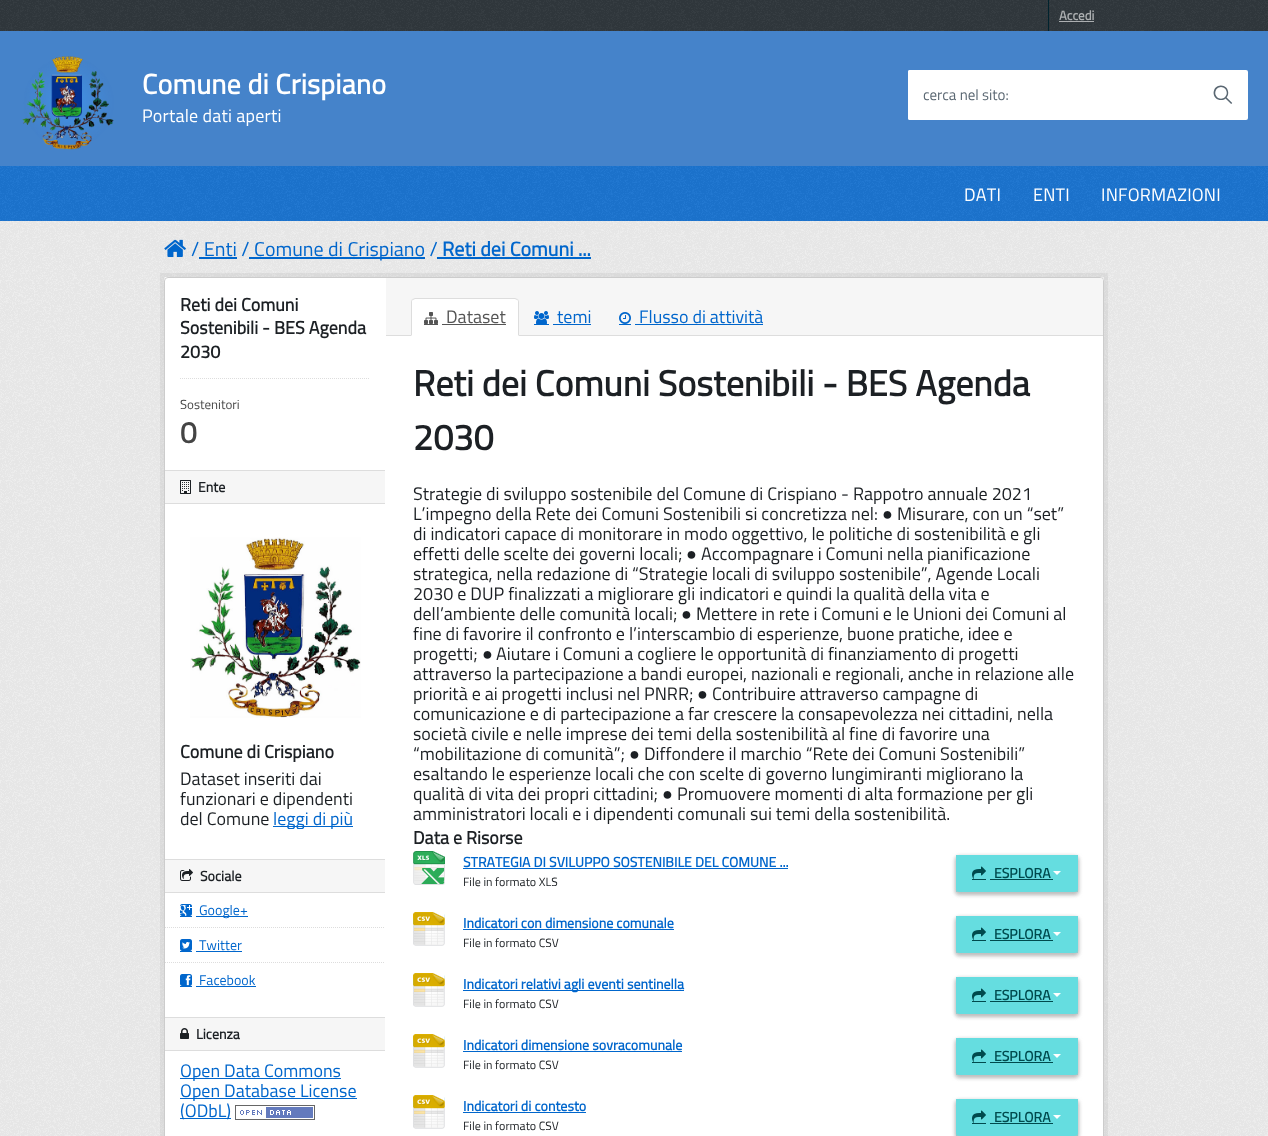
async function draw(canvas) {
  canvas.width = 1268;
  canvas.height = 1136;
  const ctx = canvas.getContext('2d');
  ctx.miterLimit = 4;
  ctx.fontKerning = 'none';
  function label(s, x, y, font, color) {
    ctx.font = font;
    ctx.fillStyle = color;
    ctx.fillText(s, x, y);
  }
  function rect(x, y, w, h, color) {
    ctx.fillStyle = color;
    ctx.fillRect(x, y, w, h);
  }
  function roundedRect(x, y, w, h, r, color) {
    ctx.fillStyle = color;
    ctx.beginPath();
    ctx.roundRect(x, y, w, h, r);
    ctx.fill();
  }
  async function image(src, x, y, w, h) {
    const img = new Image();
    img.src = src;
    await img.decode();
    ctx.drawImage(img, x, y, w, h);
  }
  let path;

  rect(0, 0, 1268, 1136, '#31383d');
  await image('assets/img1.png', 0, 0, 1268, 31);
  rect(1048, 0, 1, 31, '#00232e');
  label('Accedi', 1059, 20, 'bold 13px Titillium Web', '#adb0b2');
  rect(1059, 21, 35, 1, '#ffffff99');
  rect(0, 31, 1268, 135, '#4583ca');
  await image('assets/img2.png', 22, 56, 92, 94);
  ctx.letterSpacing = '0.25px';
  label('Comune di Crispiano', 142, 94, 'bold 28px Titillium Web', '#fff');
  ctx.letterSpacing = '0.2px';
  label('Portale dati aperti', 142, 122, '18px Titillium Web', '#fff');
  roundedRect(908, 70, 340, 50, 2, '#fff');
  roundedRect(908, 70, 290, 50, 2, '#fff');
  ctx.letterSpacing = '0px';
  ctx.font = 'bold 18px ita';
  ctx.fillStyle = '#5a6772';
  ctx.save();
  ctx.translate(1231, 104);
  ctx.rotate(-90 * Math.PI / 180);
  ctx.fillText('🔍', 0, 0);
  ctx.restore();
  label('cerca nel sito:', 923, 100, '15px Titillium Web', '#5a6772');
  rect(0, 166, 1268, 55, '#1c75d1');
  await image('assets/img3.png', 0, 166, 1268, 55);
  ctx.letterSpacing = '0.2px';
  label('DATI', 964, 201, '18px Titillium Web', '#fff');
  label('ENTI', 1033, 201, '18px Titillium Web', '#fff');
  label('INFORMAZIONI', 1101, 201, '18px Titillium Web', '#fff');
  rect(0, 221, 1268, 915, '#eee');
  await image('assets/img4.png', 0, 221, 1268, 915);
  await image('assets/img5.png', 164, 239, 22, 18);
  ctx.letterSpacing = '0px';
  label('/ Enti /', 191, 256, '20px Titillium Web', '#06c');
  rect(249, 257, 176, 2, '#06c');
  label('Comune di Crispiano /', 254, 256, '20px Titillium Web', '#06c');
  label('Reti dei Comuni ...', 442, 256, 'bold 20px Titillium Web', '#06c');
  rect(199, 257, 38, 2, '#06c');
  rect(437, 257, 154, 2, '#06c');
  ctx.strokeStyle = '#0000000d';
  ctx.lineWidth = 4;
  ctx.strokeRect(162, 275, 944, 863);
  roundedRect(164, 277, 940, 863, 4, '#fff');
  rect(165, 277, 2, 1, '#fff');
  ctx.beginPath();
  ctx.roundRect(164.5, 277.5, 939, 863, 3.5);
  ctx.strokeStyle = '#ccc';
  ctx.lineWidth = 1;
  ctx.stroke();
  label('Reti dei Comuni', 180, 311, 'bold 18px Titillium Web', '#1c2024');
  label('Sostenibili - BES Agenda', 180, 334, 'bold 18px Titillium Web', '#1c2024');
  label('2030', 180, 358, 'bold 18px Titillium Web', '#1c2024');
  path = new Path2D('M180 378.5H370');
  ctx.strokeStyle = '#ddd';
  ctx.setLineDash([1, 1]);
  ctx.stroke(path);
  label('Sostenitori', 180, 409, '13px Titillium Web', '#444');
  label('0', 180, 443, 'bold 30px Titillium Web', '#444');
  rect(165, 471, 220, 32, '#f6f6f6');
  rect(165, 470, 220, 1, '#ddd');
  rect(165, 503, 220, 1, '#ddd');
  await image('assets/img6.png', 180, 480, 11, 14);
  label('Ente', 198, 492, 'bold 14px Titillium Web', '#1c2024');
  await image('assets/img7.png', 190, 537, 171, 181);
  label('Comune di Crispiano', 180, 758, 'bold 18px Titillium Web', '#1c2024');
  label('Dataset inseriti dai', 180, 785, '18px Titillium Web', '#1c2024');
  label('funzionari e dipendenti', 180, 805, '18px Titillium Web', '#1c2024');
  label('del Comune', 180, 825, '18px Titillium Web', '#1c2024');
  rect(273, 826, 80, 1, '#06c');
  ctx.save();
  ctx.beginPath();
  ctx.rect(180, 769, 190, 60);
  ctx.clip();
  label('leggi di più', 273, 825, '18px Titillium Web', '#06c');
  ctx.restore();
  rect(165, 860, 220, 32, '#f6f6f6');
  rect(165, 859, 220, 1, '#ddd');
  rect(165, 892, 220, 1, '#ddd');
  await image('assets/img8.png', 180, 869, 13, 12);
  label('Sociale', 200, 881, 'bold 14px Titillium Web', '#1c2024');
  path = new Path2D('M165 927.5H385');
  ctx.stroke(path);
  rect(180, 916, 12, 1, '#06c');
  await image('assets/img9.png', 180, 904, 12, 12);
  rect(196, 916, 52, 1, '#06c');
  label('Google+', 199, 915, '14px Titillium Web', '#06c');
  path = new Path2D('M165 962.5H385');
  ctx.stroke(path);
  rect(180, 951, 12, 1, '#06c');
  await image('assets/img10.png', 180, 939, 12, 12);
  label('Twitter', 199, 950, '14px Titillium Web', '#06c');
  rect(196, 951, 46, 1, '#06c');
  rect(180, 986, 12, 1, '#06c');
  await image('assets/img11.png', 180, 974, 12, 12);
  label('Facebook', 199, 985, '14px Titillium Web', '#06c');
  rect(196, 986, 60, 1, '#06c');
  rect(165, 1018, 220, 32, '#f6f6f6');
  rect(165, 1017, 220, 1, '#ddd');
  rect(165, 1050, 220, 1, '#ddd');
  await image('assets/img12.png', 180, 1028, 9, 11);
  label('Licenza', 196, 1039, 'bold 14px Titillium Web', '#1c2024');
  rect(180, 1078, 161, 1, '#06c');
  label('Open Data Commons', 180, 1077, '18px Titillium Web', '#06c');
  rect(180, 1098, 177, 1, '#06c');
  label('Open Database License', 180, 1097, '18px Titillium Web', '#06c');
  rect(180, 1118, 51, 1, '#06c');
  label('(ODbL)', 180, 1117, '18px Titillium Web', '#06c');
  await image('assets/img13.png', 235, 1105, 80, 15);
  ctx.fillStyle = '#f6f6f6';
  ctx.beginPath();
  ctx.roundRect(386, 278, 717, 58, [0, 3, 0, 0]);
  ctx.fill();
  rect(386, 335, 717, 1, '#ddd');
  ctx.fillStyle = '#fff';
  ctx.beginPath();
  ctx.roundRect(411, 298, 108, 38, [4, 4, 0, 0]);
  ctx.fill();
  ctx.fillStyle = '#ddd';
  path = new Path2D('M415 298L412 299L413 300L415 299H515L517 300L518 299L515 298Z');
  ctx.fill(path);
  path = new Path2D('M519 336V302C519 301 518.5 300 518 299L517 300C518 300 518 301 518 302V335Z');
  ctx.fill(path);
  path = new Path2D('M411 336L412 335V302C412 301 412 300 413 300L412 299C411.5 300 411 301 411 302Z');
  ctx.fill(path);
  rect(424, 324, 14, 1, '#555');
  await image('assets/img14.png', 424, 312, 14, 12);
  label('Dataset', 446, 323, '18px Titillium Web', '#555');
  rect(442, 324, 64, 1, '#555');
  rect(534, 324, 15, 1, '#06c');
  await image('assets/img15.png', 534, 311, 15, 13);
  label('temi', 557, 323, '18px Titillium Web', '#06c');
  rect(553, 324, 38, 1, '#06c');
  rect(619, 324, 12, 1, '#06c');
  await image('assets/img16.png', 619, 312, 12, 12);
  label('Flusso di attività', 639, 323, '18px Titillium Web', '#06c');
  rect(635, 324, 128, 1, '#06c');
  label('Reti dei Comuni Sostenibili - BES Agenda', 413, 396, 'bold 36px Titillium Web', '#1c2024');
  label('2030', 413, 450, 'bold 36px Titillium Web', '#1c2024');
  label('Strategie di sviluppo sostenibile del Comune di Crispiano - Rappotro annuale 2021', 413, 500, '18px Titillium Web', '#1c2024');
  label('L’impegno della Rete dei Comuni Sostenibili si concretizza nel:', 413, 520, '18px Titillium Web', '#1c2024');
  label('●', 882, 520, '18px Liberation Sans', '#1c2024');
  label('Misurare, con un “set”', 897, 520, '18px Titillium Web', '#1c2024');
  label('di indicatori capace di monitorare in modo oggettivo, le politiche di sostenibilità e gli', 413, 540, '18px Titillium Web', '#1c2024');
  label('effetti delle scelte dei governi locali;', 413, 560, '18px Titillium Web', '#1c2024');
  label('●', 686, 560, '18px Liberation Sans', '#1c2024');
  label('Accompagnare i Comuni nella pianificazione', 701, 560, '18px Titillium Web', '#1c2024');
  label('strategica, nella redazione di “Strategie locali di sviluppo sostenibile”, Agende Locali', 413, 580, '18px Titillium Web', '#1c2024');
  label('2030 e DUP finalizzati a migliorare gli indicatori e quindi la qualità della vita e', 413, 600, '18px Titillium Web', '#1c2024');
  label('dell’ambiente delle comunità locali;', 413, 620, '18px Titillium Web', '#1c2024');
  label('●', 681, 620, '18px Liberation Sans', '#1c2024');
  label('Mettere in rete i Comuni e le Unioni dei Comuni al', 696, 620, '18px Titillium Web', '#1c2024');
  label('fine di favorire il confronto e l’interscambio di esperienze, buone pratiche, idee e', 413, 640, '18px Titillium Web', '#1c2024');
  label('progetti;', 413, 660, '18px Titillium Web', '#1c2024');
  label('●', 482, 660, '18px Liberation Sans', '#1c2024');
  label('Aiutare i Comuni a cogliere le opportunità di finanziamento di progetti', 496, 660, '18px Titillium Web', '#1c2024');
  label('attraverso la partecipazione a bandi europei, nazionali e regionali, anche in relazione alle', 413, 680, '18px Titillium Web', '#1c2024');
  label('priorità e ai progetti inclusi nel PNRR;', 413, 700, '18px Titillium Web', '#1c2024');
  label('●', 697, 700, '18px Liberation Sans', '#1c2024');
  label('Contribuire attraverso campagne di', 712, 700, '18px Titillium Web', '#1c2024');
  label('comunicazione e di partecipazione a far crescere la consapevolezza nei cittadini, nella', 413, 720, '18px Titillium Web', '#1c2024');
  label('società civile e nelle imprese dei temi della sostenibilità al fine di favorire una', 413, 740, '18px Titillium Web', '#1c2024');
  label('“mobilitazione di comunità”;', 413, 760, '18px Titillium Web', '#1c2024');
  label('●', 629, 760, '18px Liberation Sans', '#1c2024');
  label('Diffondere il marchio “Rete dei Comuni Sostenibili”', 644, 760, '18px Titillium Web', '#1c2024');
  label('esaltando le esperienze locali che con scelte di governo lungimiranti migliorano la', 413, 780, '18px Titillium Web', '#1c2024');
  label('qualità di vita dei propri cittadini;', 413, 800, '18px Titillium Web', '#1c2024');
  label('●', 662, 800, '18px Liberation Sans', '#1c2024');
  label('Promuovere momenti di alta formazione per gli', 677, 800, '18px Titillium Web', '#1c2024');
  label('amministratori locali e i dipendenti comunali sui temi della sostenibilità.', 413, 820, '18px Titillium Web', '#1c2024');
  label('Data e Risorse', 413, 844, 'bold 18px Titillium Web', '#1c2024');
  await image('assets/img17.png', 413, 851, 32, 34);
  label('STRATEGIA DI SVILUPPO SOSTENIBILE DEL COMUNE ...', 463, 867, 'bold 14px Titillium Web', '#06c');
  rect(463, 868, 325, 1, '#06c');
  ctx.fillStyle = '#bdbdbd';
  ctx.filter = 'blur(2px)';
  ctx.beginPath();
  ctx.rect(956, 857, 122, 37);
  ctx.fill();
  ctx.filter = 'none';
  rect(956, 855, 122, 37, '#65dde0');
  ctx.fillStyle = '#bdbdbd';
  ctx.filter = 'blur(2px)';
  ctx.beginPath();
  ctx.roundRect(956, 857, 122, 37, 4);
  ctx.fill();
  ctx.filter = 'none';
  roundedRect(956, 855, 122, 37, 4, '#65dde0');
  rect(972, 879, 14, 1, '#004a4d');
  await image('assets/img18.png', 972, 866, 14, 13);
  label('ESPLORA', 994, 878, 'bold 14px Titillium Web', '#004a4d');
  rect(990, 879, 63, 1, '#004a4d');
  ctx.fillStyle = '#fff';
  path = new Path2D('M1053 871H1061L1057 875Z');
  ctx.fill(path);
  label('File in formato XLS', 463, 886, '12px Titillium Web', '#1c2024');
  await image('assets/img19.png', 413, 912, 32, 34);
  label('Indicatori con dimensione comunale', 463, 928, 'bold 14px Titillium Web', '#06c');
  rect(463, 929, 211, 1, '#06c');
  ctx.fillStyle = '#bdbdbd';
  ctx.filter = 'blur(2px)';
  ctx.beginPath();
  ctx.rect(956, 918, 122, 37);
  ctx.fill();
  ctx.filter = 'none';
  rect(956, 916, 122, 37, '#65dde0');
  ctx.fillStyle = '#bdbdbd';
  ctx.filter = 'blur(2px)';
  ctx.beginPath();
  ctx.roundRect(956, 918, 122, 37, 4);
  ctx.fill();
  ctx.filter = 'none';
  roundedRect(956, 916, 122, 37, 4, '#65dde0');
  rect(972, 940, 14, 1, '#004a4d');
  await image('assets/img18.png', 972, 927, 14, 13);
  label('ESPLORA', 994, 939, 'bold 14px Titillium Web', '#004a4d');
  rect(990, 940, 63, 1, '#004a4d');
  ctx.fillStyle = '#fff';
  path = new Path2D('M1053 932H1061L1057 936Z');
  ctx.fill(path);
  label('File in formato CSV', 463, 947, '12px Titillium Web', '#1c2024');
  await image('assets/img19.png', 413, 973, 32, 34);
  rect(463, 990, 221, 1, '#06c');
  label('Indicatori relativi agli eventi sentinella', 463, 989, 'bold 14px Titillium Web', '#06c');
  ctx.fillStyle = '#bdbdbd';
  ctx.filter = 'blur(2px)';
  ctx.beginPath();
  ctx.rect(956, 979, 122, 37);
  ctx.fill();
  ctx.filter = 'none';
  rect(956, 977, 122, 37, '#65dde0');
  ctx.fillStyle = '#bdbdbd';
  ctx.filter = 'blur(2px)';
  ctx.beginPath();
  ctx.roundRect(956, 979, 122, 37, 4);
  ctx.fill();
  ctx.filter = 'none';
  roundedRect(956, 977, 122, 37, 4, '#65dde0');
  rect(972, 1001, 14, 1, '#004a4d');
  await image('assets/img18.png', 972, 988, 14, 13);
  label('ESPLORA', 994, 1000, 'bold 14px Titillium Web', '#004a4d');
  rect(990, 1001, 63, 1, '#004a4d');
  ctx.fillStyle = '#fff';
  path = new Path2D('M1053 993H1061L1057 997Z');
  ctx.fill(path);
  label('File in formato CSV', 463, 1008, '12px Titillium Web', '#1c2024');
  await image('assets/img19.png', 413, 1034, 32, 34);
  label('Indicatori dimensione sovracomunale', 463, 1050, 'bold 14px Titillium Web', '#06c');
  rect(463, 1051, 219, 1, '#06c');
  ctx.fillStyle = '#bdbdbd';
  ctx.filter = 'blur(2px)';
  ctx.beginPath();
  ctx.rect(956, 1040, 122, 37);
  ctx.fill();
  ctx.filter = 'none';
  rect(956, 1038, 122, 37, '#65dde0');
  ctx.fillStyle = '#bdbdbd';
  ctx.filter = 'blur(2px)';
  ctx.beginPath();
  ctx.roundRect(956, 1040, 122, 37, 4);
  ctx.fill();
  ctx.filter = 'none';
  roundedRect(956, 1038, 122, 37, 4, '#65dde0');
  rect(972, 1062, 14, 1, '#004a4d');
  await image('assets/img18.png', 972, 1049, 14, 13);
  label('ESPLORA', 994, 1061, 'bold 14px Titillium Web', '#004a4d');
  rect(990, 1062, 63, 1, '#004a4d');
  ctx.fillStyle = '#fff';
  path = new Path2D('M1053 1054H1061L1057 1058Z');
  ctx.fill(path);
  label('File in formato CSV', 463, 1069, '12px Titillium Web', '#1c2024');
  await image('assets/img19.png', 413, 1095, 32, 34);
  label('Indicatori di contesto', 463, 1111, 'bold 14px Titillium Web', '#06c');
  rect(463, 1112, 123, 1, '#06c');
  ctx.fillStyle = '#bdbdbd';
  ctx.filter = 'blur(2px)';
  ctx.beginPath();
  ctx.rect(956, 1101, 122, 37);
  ctx.fill();
  ctx.filter = 'none';
  rect(956, 1099, 122, 37, '#65dde0');
  ctx.fillStyle = '#bdbdbd';
  ctx.filter = 'blur(2px)';
  ctx.beginPath();
  ctx.roundRect(956, 1101, 122, 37, 4);
  ctx.fill();
  ctx.filter = 'none';
  roundedRect(956, 1099, 122, 37, 4, '#65dde0');
  rect(972, 1123, 14, 1, '#004a4d');
  await image('assets/img18.png', 972, 1110, 14, 13);
  label('ESPLORA', 994, 1122, 'bold 14px Titillium Web', '#004a4d');
  rect(990, 1123, 63, 1, '#004a4d');
  ctx.fillStyle = '#fff';
  path = new Path2D('M1053 1115H1061L1057 1119Z');
  ctx.fill(path);
  label('File in formato CSV', 463, 1130, '12px Titillium Web', '#1c2024');
}

draw(document.querySelector('canvas'));
